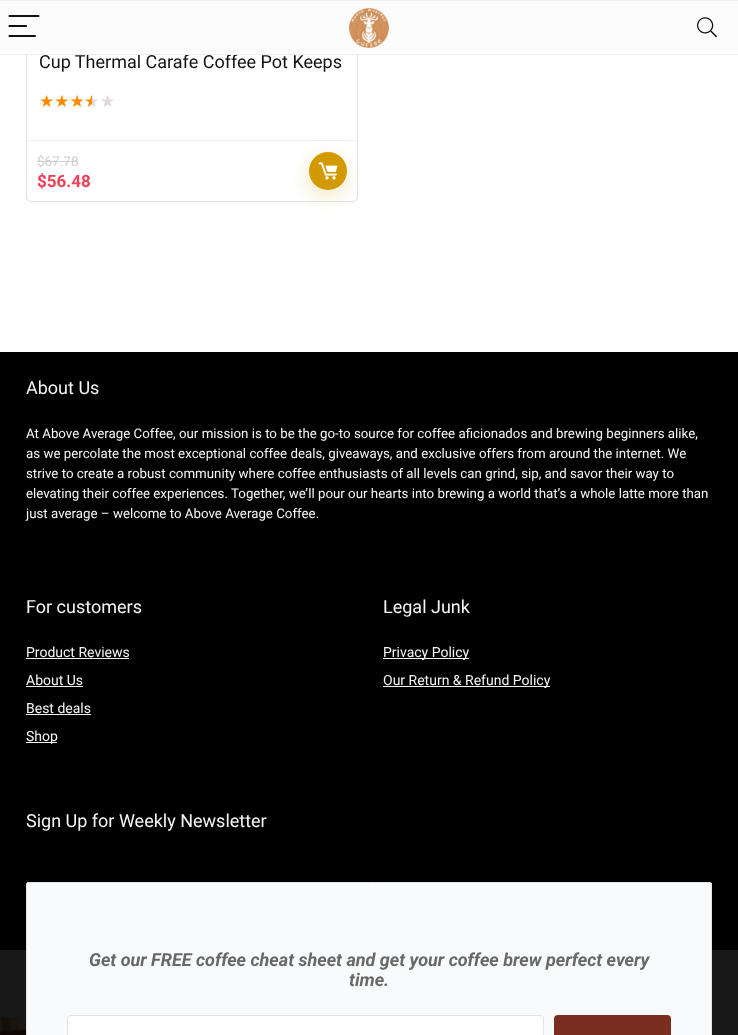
async function draw(canvas) {
  canvas.width = 738;
  canvas.height = 1035;
  const ctx = canvas.getContext('2d');
  ctx.miterLimit = 4;
  ctx.fontKerning = 'normal';
  function label(s, x, y, font, color) {
    ctx.font = font;
    ctx.fillStyle = color;
    ctx.fillText(s, x, y);
  }
  function rect(x, y, w, h, color) {
    ctx.fillStyle = color;
    ctx.fillRect(x, y, w, h);
  }
  function roundedRect(x, y, w, h, r, color) {
    ctx.fillStyle = color;
    ctx.beginPath();
    ctx.roundRect(x, y, w, h, r);
    ctx.fill();
  }
  async function image(src, x, y, w, h) {
    const img = new Image();
    img.src = src;
    await img.decode();
    ctx.drawImage(img, x, y, w, h);
  }
  let gradient, path;

  rect(0, 0, 738, 1035, '#fff');
  ctx.beginPath();
  ctx.roundRect(26.5, -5.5, 331, 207, 4.5);
  ctx.strokeStyle = '#e2e2e2';
  ctx.stroke();
  rect(0, 1, 738, 53, '#fcfcfc');
  rect(0, 0, 738, 1, '#eee');
  label('Cup Thermal Carafe Coffee Pot Keeps', 39, 68, '18px Roboto', '#111');
  rect(0, 54, 738, 1, '#eee');
  path = new Path2D('M9.5 16H38.5M9.5 26H26M9.5 36H35');
  ctx.strokeStyle = '#111';
  ctx.lineWidth = 2.2;
  ctx.lineCap = 'round';
  ctx.stroke(path);
  await image('assets/img1.png', 349, 8, 40, 40);
  await image('assets/img2.png', 697, 17, 20, 21);
  label('★★★', 39, 107, '17px DejaVu Sans', '#ff8a00');
  gradient = ctx.createLinearGradient(84, 102, 100, 102);
  gradient.addColorStop(0, '#ff8a00');
  gradient.addColorStop(0.5, '#ff8a00');
  gradient.addColorStop(0.51, '#e0dadf');
  gradient.addColorStop(1, '#e0dadf');
  ctx.fillStyle = gradient;
  ctx.fillText('★', 84, 107);
  label('★', 100, 107, '17px DejaVu Sans', '#e0dadf');
  rect(27, 140, 330, 1, '#f0f0f0');
  label('$67.78', 37, 166, '13.5px Roboto', '#cfcfcf');
  rect(37, 161, 41, 1, '#cfcfcf');
  label('$56.48', 37, 187, 'bold 17px Roboto', '#f04057');
  ctx.fillStyle = '#d39a0040';
  ctx.filter = 'blur(9.5px)';
  ctx.beginPath();
  ctx.roundRect(308, 158, 38, 38, 19);
  ctx.fill();
  ctx.filter = 'none';
  ctx.fillStyle = '#d39a00';
  ctx.beginPath();
  ctx.arc(328, 171, 19, 0, 2 * Math.PI);
  ctx.fill();
  await image('assets/img3.png', 318, 162, 20, 18);
  rect(0, 352, 738, 598, '#000');
  await image('assets/img4.png', 0, 950, 738, 85);
  label('About Us', 26, 394, '18px Roboto', '#f5f5f5');
  label('At Above Average Coffee, our mission is to be the go-to source for coffee aficionados and brewing beginners alike,', 26, 438, '13.3px Roboto', '#f5f5f5');
  label('as we percolate the most exceptional coffee deals, giveaways, and exclusive offers from around the internet. We', 26, 458, '13.3px Roboto', '#f5f5f5');
  label('strive to create a robust community where coffee enthusiasts of all levels can grind, sip, and savor their way to', 26, 478, '13.3px Roboto', '#f5f5f5');
  label('elevating their coffee experiences. Together, we’ll pour our hearts into brewing a world that’s a whole latte more than', 26, 498, '13.3px Roboto', '#f5f5f5');
  label('just average – welcome to Above Average Coffee.', 26, 518, '13.3px Roboto', '#f5f5f5');
  label('For customers', 26, 613, '18px Roboto', '#f5f5f5');
  label('Product Reviews', 26, 657, '14px Roboto', '#f5f5f5');
  rect(26, 658, 103, 1, '#f1f1f1');
  label('About Us', 26, 685, '14px Roboto', '#f5f5f5');
  rect(26, 686, 57, 1, '#f1f1f1');
  label('Best deals', 26, 713, '14px Roboto', '#f5f5f5');
  rect(26, 714, 65, 1, '#f1f1f1');
  rect(26, 742, 31, 1, '#f1f1f1');
  label('Shop', 26, 741, '14px Roboto', '#f5f5f5');
  label('Legal Junk', 383, 613, '18px Roboto', '#f5f5f5');
  rect(383, 658, 86, 1, '#f1f1f1');
  label('Privacy Policy', 383, 657, '14px Roboto', '#f5f5f5');
  rect(383, 686, 167, 1, '#f1f1f1');
  label('Our Return & Refund Policy', 383, 685, '14px Roboto', '#f5f5f5');
  label('Sign Up for Weekly Newsletter', 26, 827, '18px Roboto', '#f5f5f5');
  ctx.fillStyle = '#f9fafb';
  ctx.beginPath();
  ctx.roundRect(26.5, 882.5, 685, 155, 1.5);
  ctx.fill();
  ctx.strokeStyle = '#e3e3e3';
  ctx.lineWidth = 1;
  ctx.stroke();
  label('Get our FREE coffee cheat sheet and get your coffee brew perfect every', 89, 966, 'italic bold 18px Roboto', '#686868');
  label('time.', 349, 986, 'italic bold 18px Roboto', '#686868');
  ctx.fillStyle = '#fff';
  ctx.beginPath();
  ctx.roundRect(67.5, 1015.5, 476, 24, 3.5);
  ctx.fill();
  ctx.stroke();
  roundedRect(554, 1015, 117, 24, 4, '#7a2e20');
}

draw(document.querySelector('canvas'));
